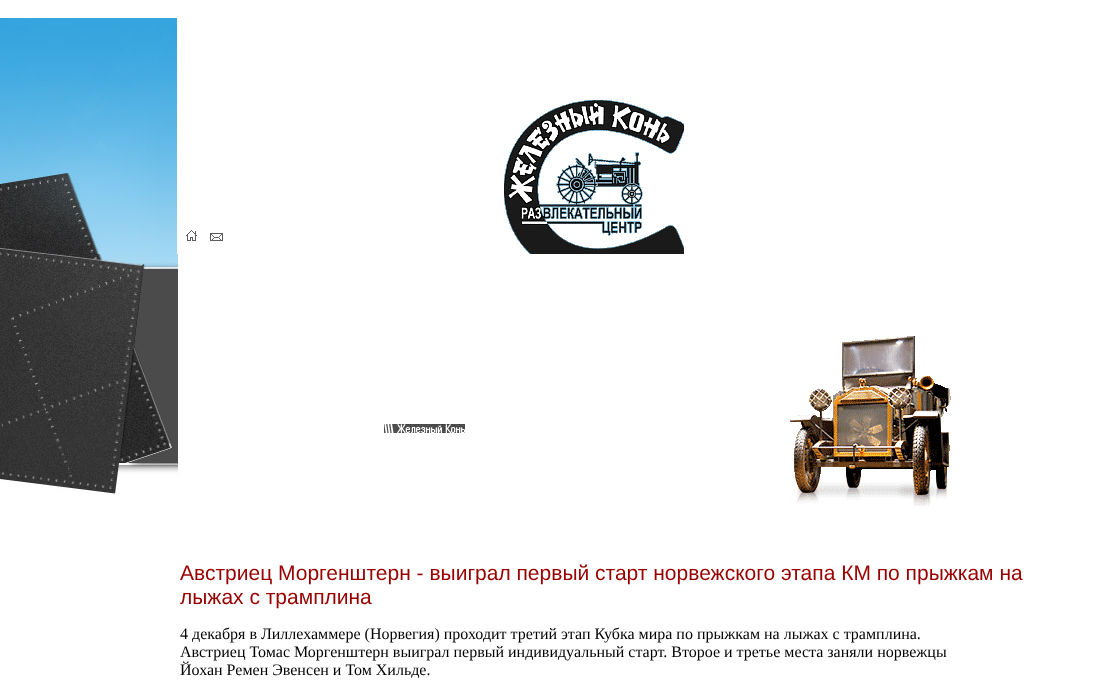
async function draw(canvas) {
  canvas.width = 1109;
  canvas.height = 682;
  const ctx = canvas.getContext('2d');
  ctx.miterLimit = 4;
  ctx.fontKerning = 'normal';
  function label(s, x, y, font, color) {
    ctx.font = font;
    ctx.fillStyle = color;
    ctx.fillText(s, x, y);
  }
  function rect(x, y, w, h, color) {
    ctx.fillStyle = color;
    ctx.fillRect(x, y, w, h);
  }
  async function image(src, x, y, w, h) {
    const img = new Image();
    img.src = src;
    await img.decode();
    ctx.drawImage(img, x, y, w, h);
  }

  rect(0, 0, 1109, 682, '#fff');
  await image('assets/img1.png', 186, 230, 37, 11);
  await image('assets/img2.png', 0, 18, 177, 236);
  await image('assets/img3.png', 504, 100, 180, 154);
  await image('assets/img4.png', 0, 254, 178, 240);
  await image('assets/img5.png', 384, 424, 81, 9);
  await image('assets/img6.png', 790, 336, 161, 170);
  label('Австриец Моргенштерн - выиграл первый старт норвежского этапа КМ по прыжкам на', 180, 580, '21px Liberation Sans', '#900');
  label('лыжах с трамплина', 180, 604, '21px Liberation Sans', '#900');
  label('4 декабря в Лиллехаммере (Норвегия) проходит третий этап Кубка мира по прыжкам на лыжах с трамплина.', 180, 639, '16px Liberation Serif', '#000');
  label('Австриец Томас Моргенштерн выиграл первый индивидуальный старт. Второе и третье места заняли норвежцы', 180, 657, '16px Liberation Serif', '#000');
  label('Йохан Ремен Эвенсен и Том Хильде.', 180, 675, '16px Liberation Serif', '#000');
}

draw(document.querySelector('canvas'));
